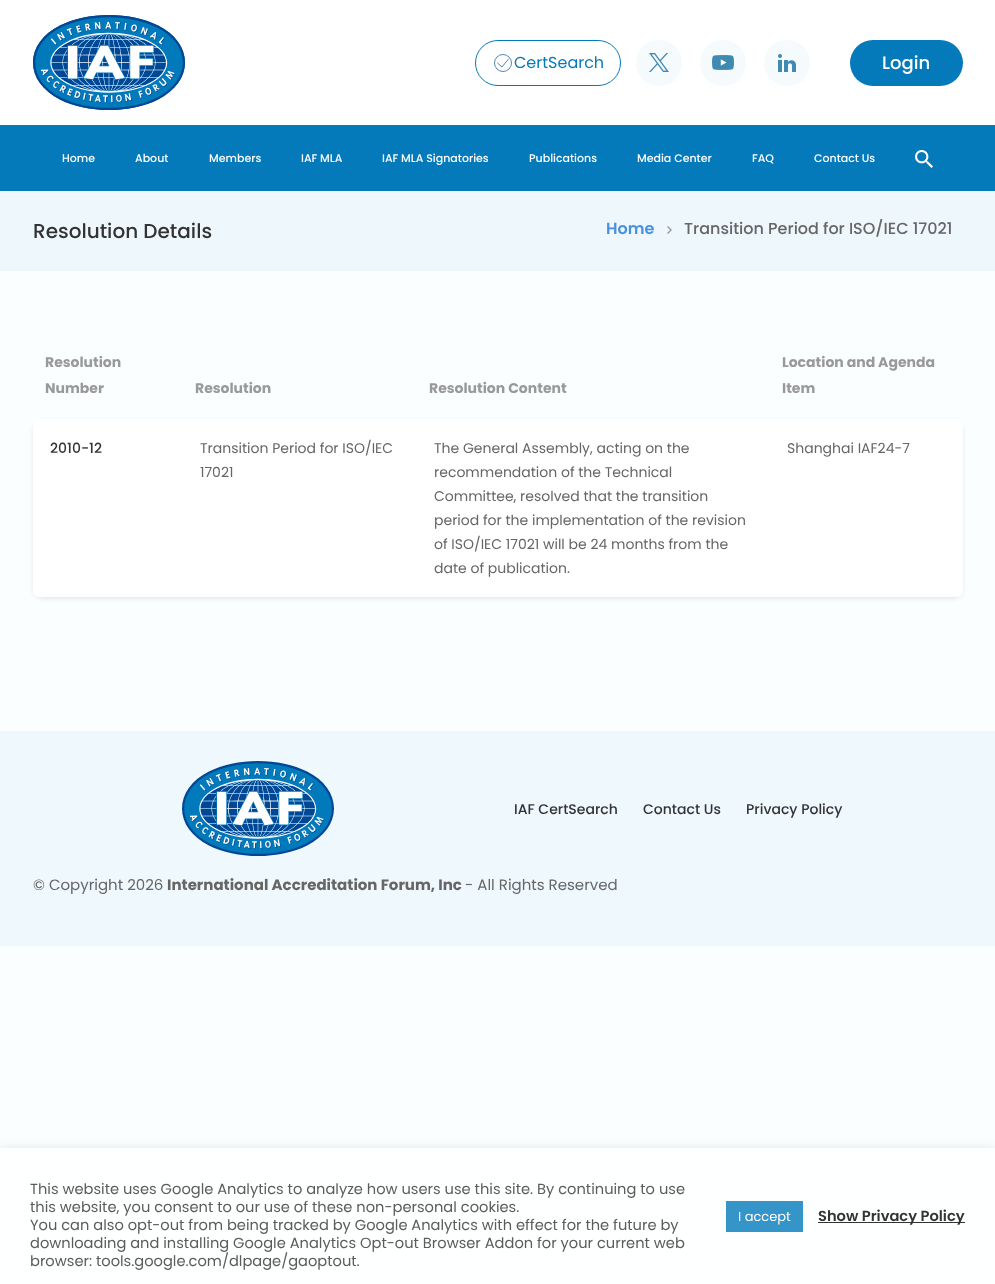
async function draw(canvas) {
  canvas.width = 995;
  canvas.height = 1284;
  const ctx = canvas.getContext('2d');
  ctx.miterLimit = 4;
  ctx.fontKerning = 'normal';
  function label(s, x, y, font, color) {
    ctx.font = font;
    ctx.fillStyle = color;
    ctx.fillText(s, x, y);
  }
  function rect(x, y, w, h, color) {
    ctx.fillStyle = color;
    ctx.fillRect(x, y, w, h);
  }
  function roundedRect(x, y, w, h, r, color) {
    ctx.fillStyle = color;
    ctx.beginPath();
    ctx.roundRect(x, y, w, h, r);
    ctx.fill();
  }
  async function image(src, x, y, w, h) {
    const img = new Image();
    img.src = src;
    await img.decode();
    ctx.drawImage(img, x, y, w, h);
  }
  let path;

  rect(0, 0, 995, 1284, '#fbfeff');
  rect(0, 0, 995, 125, '#fff');
  await image('assets/img1.png', 33, 15, 152, 95);
  await image('assets/img2.png', 33, 15, 152, 95);
  ctx.beginPath();
  ctx.roundRect(475.5, 40.5, 145, 45, 22.5);
  ctx.strokeStyle = '#047aba';
  ctx.stroke();
  ctx.beginPath();
  ctx.arc(503, 63, 8.5, 0, 2 * Math.PI);
  ctx.strokeStyle = '#3e7bb3';
  ctx.lineWidth = 0.9;
  ctx.stroke();
  path = new Path2D('M497.5 63L502 67L508.5 59');
  ctx.lineCap = 'round';
  ctx.stroke(path);
  label('CertSearch', 514, 68, '16px Poppins', '#047aba');
  ctx.fillStyle = '#f5fafc';
  ctx.beginPath();
  ctx.arc(659, 63, 23, 0, 2 * Math.PI);
  ctx.fill();
  await image('assets/img3.png', 649, 53, 20, 19);
  ctx.beginPath();
  ctx.arc(723, 63, 23, 0, 2 * Math.PI);
  ctx.fill();
  await image('assets/img4.png', 712, 55, 22, 15);
  ctx.beginPath();
  ctx.arc(787, 63, 23, 0, 2 * Math.PI);
  ctx.fill();
  await image('assets/img5.png', 778, 54, 18, 18);
  roundedRect(850, 40, 113, 46, 23, '#047aba');
  label('Login', 882, 69, '500 18px Poppins', '#fff');
  rect(0, 125, 995, 66, '#047aba');
  label('Home', 62, 162, '500 11px Poppins', '#fff');
  label('About', 135, 162, '500 11px Poppins', '#fff');
  label('Members', 209, 162, '500 11px Poppins', '#fff');
  label('IAF MLA', 301, 162, '500 11px Poppins', '#fff');
  label('IAF MLA Signatories', 382, 162, '500 11px Poppins', '#fff');
  label('Publications', 529, 162, '500 11px Poppins', '#fff');
  label('Media Center', 637, 162, '500 11px Poppins', '#fff');
  label('FAQ', 752, 162, '500 11px Poppins', '#fff');
  label('Contact Us', 814, 162, '500 11px Poppins', '#fff');
  await image('assets/img6.png', 915, 150, 18, 18);
  rect(0, 191, 995, 80, '#eef7fc');
  label('Resolution Details', 33, 238, '500 20px Poppins', '#333');
  label('Home', 606, 234, '600 16px Poppins', '#4990e1');
  await image('assets/img7.png', 667, 226, 5, 8);
  label('Transition Period for ISO/IEC 17021', 684, 234, '500 16px Poppins', '#666');
  label('Resolution', 45, 367, 'bold 14px Poppins', '#999');
  label('Number', 45, 393, 'bold 14px Poppins', '#999');
  label('Resolution', 195, 393, 'bold 14px Poppins', '#999');
  label('Resolution Content', 429, 393, 'bold 14px Poppins', '#999');
  label('Location and Agenda', 782, 367, 'bold 14px Poppins', '#999');
  label('Item', 782, 393, 'bold 14px Poppins', '#999');
  ctx.fillStyle = '#0020481a';
  ctx.filter = 'blur(2px)';
  ctx.beginPath();
  ctx.roundRect(33, 421, 930, 178, 10);
  ctx.fill();
  ctx.filter = 'none';
  ctx.fillStyle = '#fff';
  ctx.beginPath();
  ctx.roundRect(33, 419, 150, 178, [6, 0, 0, 6]);
  ctx.fill();
  label('2010-12', 50, 453, '500 14px Poppins', '#333');
  rect(183, 419, 587, 178, '#fff');
  label('Transition Period for ISO/IEC', 200, 453, '14px Poppins', '#666');
  label('17021', 200, 477, '14px Poppins', '#666');
  label('The General Assembly, acting on the', 434, 453, '14px Poppins', '#666');
  label('recommendation of the Technical', 434, 477, '14px Poppins', '#666');
  label('Committee, resolved that the transition', 434, 501, '14px Poppins', '#666');
  label('period for the implementation of the revision', 434, 525, '14px Poppins', '#666');
  label('of ISO/IEC 17021 will be 24 months from the', 434, 549, '14px Poppins', '#666');
  label('date of publication.', 434, 573, '14px Poppins', '#666');
  ctx.fillStyle = '#fff';
  ctx.beginPath();
  ctx.roundRect(770, 419, 193, 178, [0, 6, 6, 0]);
  ctx.fill();
  label('Shanghai IAF24-7', 787, 453, '14px Poppins', '#666');
  rect(0, 731, 995, 215, '#eff8fc');
  await image('assets/img8.png', 182, 761, 152, 95);
  label('IAF CertSearch', 514, 814, '500 14px Poppins', '#333');
  label('Contact Us', 643, 814, '500 14px Poppins', '#333');
  label('Privacy Policy', 746, 814, '500 14px Poppins', '#333');
  label('© Copyright 2026', 33, 890, '15px Poppins', '#666');
  label('International Accreditation Forum, Inc', 167, 890, 'bold 15px Poppins', '#666');
  label('- All Rights Reserved', 465, 890, '15px Poppins', '#666');
  ctx.fillStyle = '#bcbcbc4d';
  ctx.filter = 'blur(5px)';
  ctx.beginPath();
  ctx.rect(0, 1147, 995, 136);
  ctx.fill();
  ctx.filter = 'none';
  rect(0, 1148, 995, 136, '#feffff');
  label('This website uses Google Analytics to analyze how users use this site. By continuing to use', 30, 1194, '14.65px Poppins', '#5b5c5c');
  label('this website, you consent to our use of these non-personal cookies.', 30, 1212, '14.65px Poppins', '#5b5c5c');
  label('You can also opt-out from being tracked by Google Analytics with effect for the future by', 30, 1230, '14.65px Poppins', '#5b5c5c');
  label('downloading and installing Google Analytics Opt-out Browser Addon for your current web', 30, 1248, '14.65px Poppins', '#5b5c5c');
  label('browser: tools.google.com/dlpage/gaoptout.', 30, 1266, '14.65px Poppins', '#5b5c5c');
  rect(726, 1201, 77, 31, '#3594c8');
  label('I accept', 738, 1221, '13px Poppins', '#fff');
  rect(818, 1222, 147, 1, '#323333');
  label('Show Privacy Policy', 818, 1221, '600 14.65px Poppins', '#333');
}

draw(document.querySelector('canvas'));
